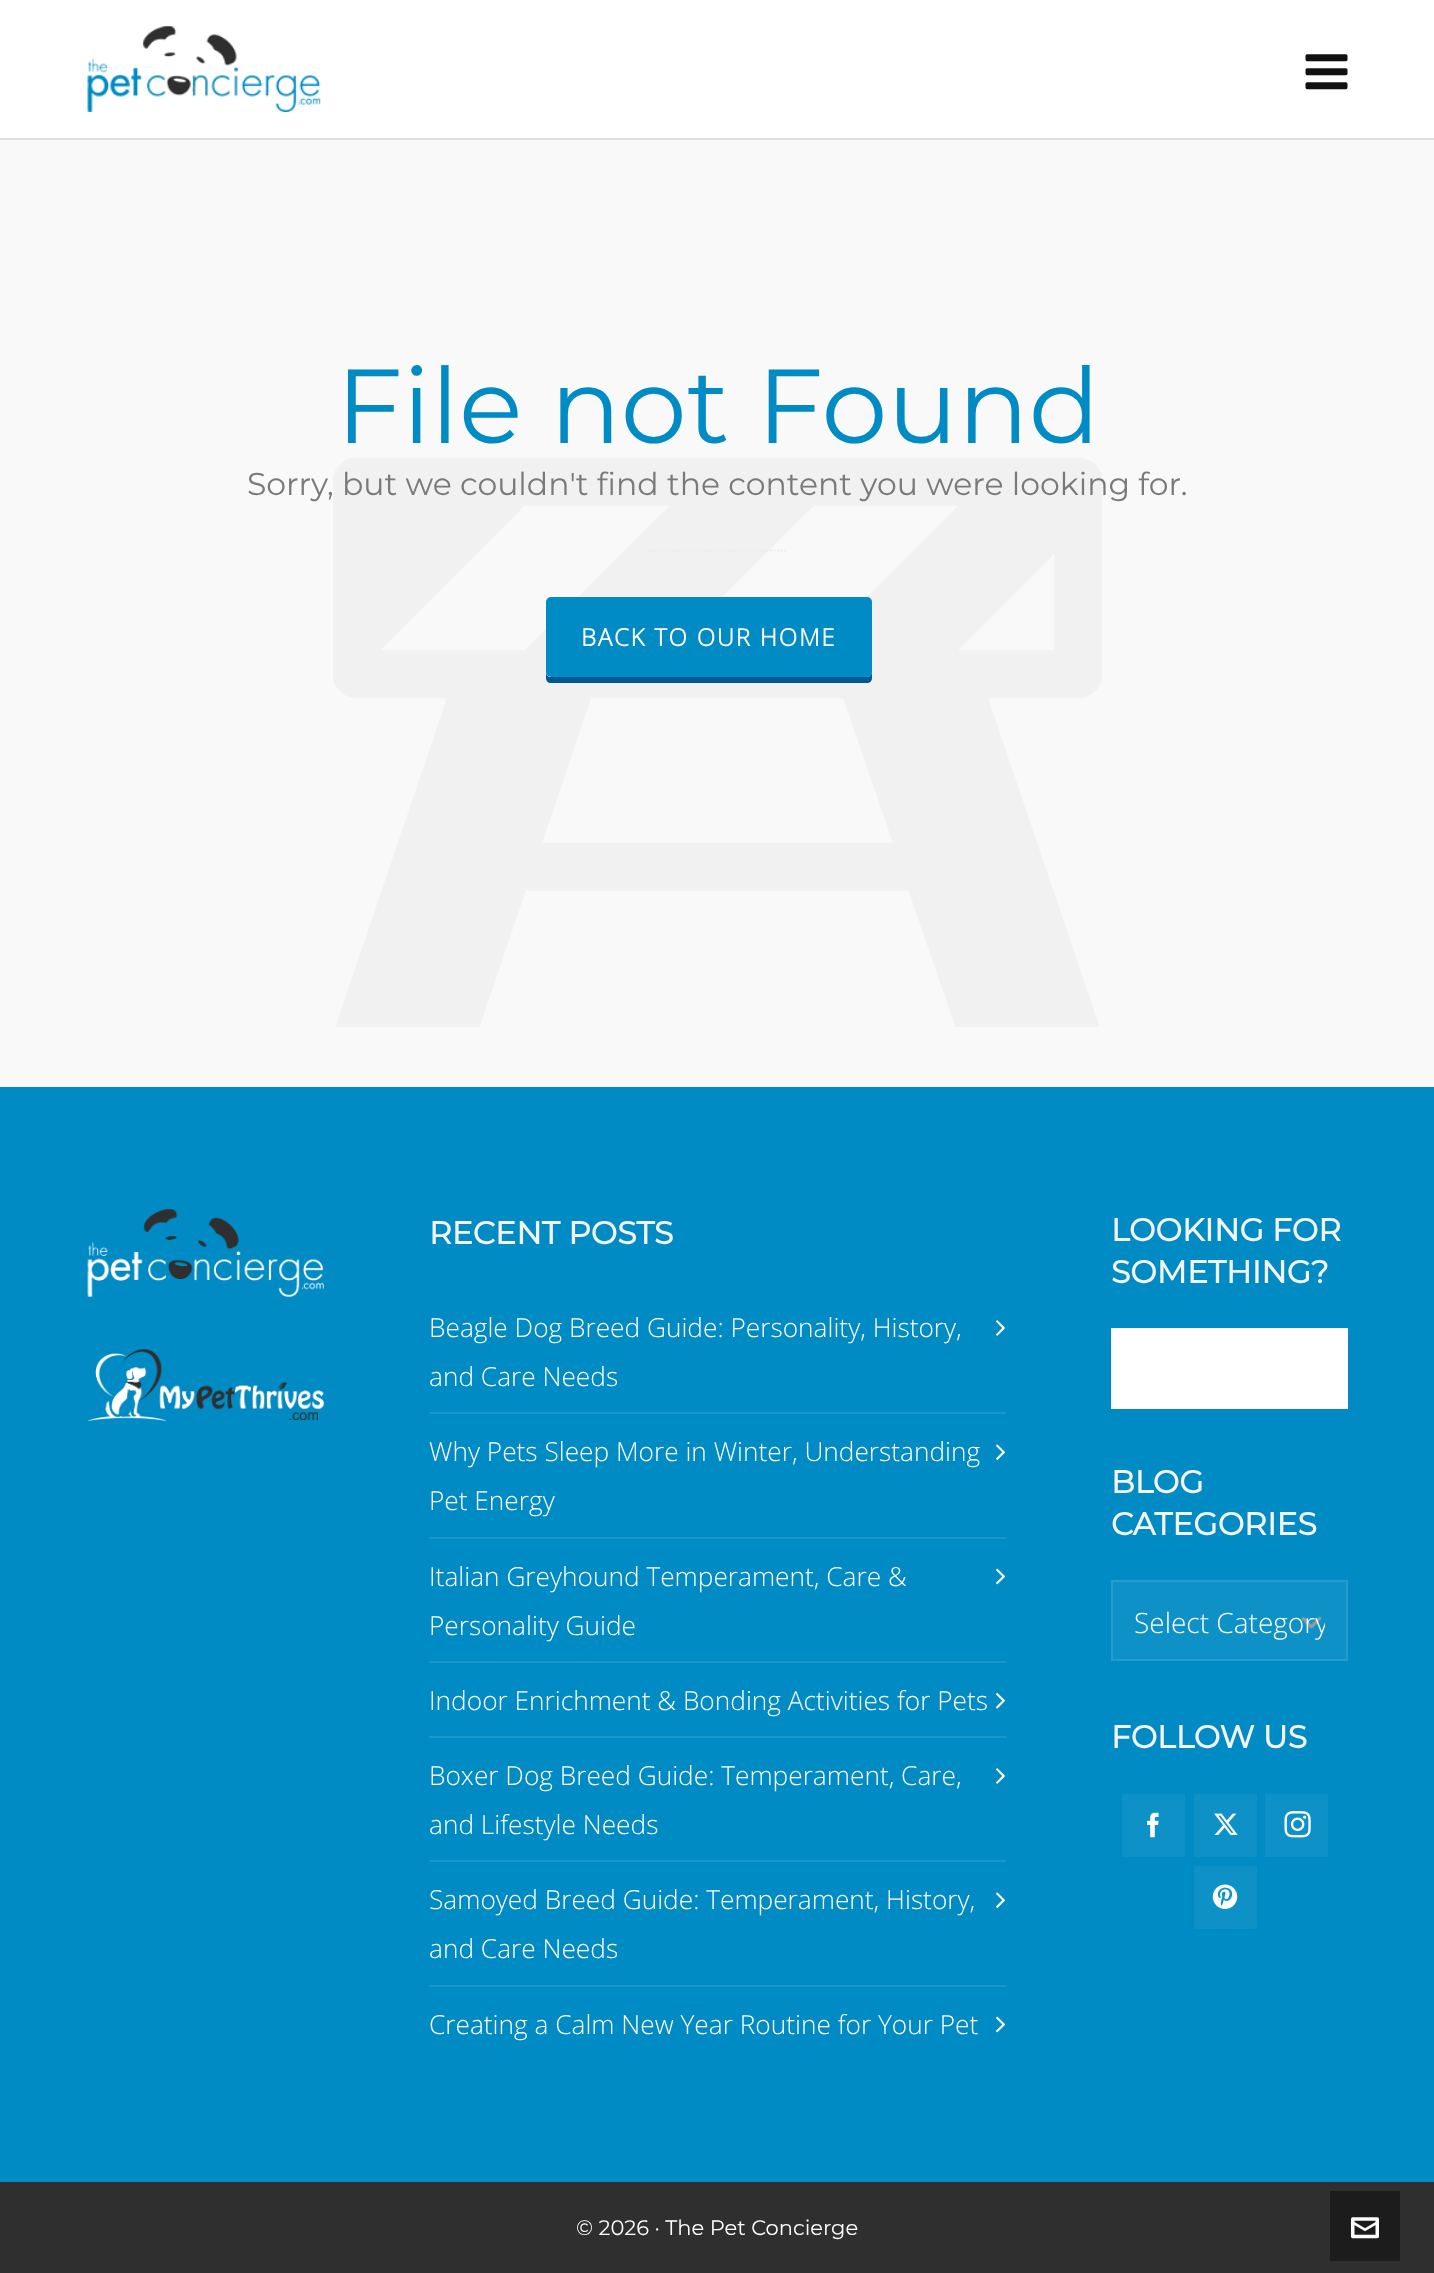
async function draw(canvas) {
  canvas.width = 1434;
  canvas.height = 2273;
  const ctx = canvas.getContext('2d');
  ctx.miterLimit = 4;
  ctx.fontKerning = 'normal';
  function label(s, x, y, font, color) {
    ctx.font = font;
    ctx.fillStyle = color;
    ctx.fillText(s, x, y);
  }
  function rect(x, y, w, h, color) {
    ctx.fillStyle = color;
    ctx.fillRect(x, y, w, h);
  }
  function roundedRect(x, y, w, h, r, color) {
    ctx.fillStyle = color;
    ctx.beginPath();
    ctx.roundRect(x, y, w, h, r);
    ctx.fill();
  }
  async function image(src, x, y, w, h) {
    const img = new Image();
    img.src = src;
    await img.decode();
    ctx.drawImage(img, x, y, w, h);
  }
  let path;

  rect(0, 0, 1434, 2273, '#f9f9f9');
  rect(0, 0, 1434, 138, '#fff');
  rect(0, 138, 1434, 2, '#e1e1e1');
  await image('assets/img1.png', 87, 26, 234, 86);
  await image('assets/img2.png', 1305, 54, 43, 36);
  label('File not Found', 336, 443, '100 105px Montserrat', '#008bc4');
  await image('assets/img3.png', 333, 458, 769, 569);
  label('Sorry, but we couldn\'t find the content you were looking for.', 247, 495, '100 31.5px Montserrat', '#797979');
  path = new Path2D('M647.5 550.5H787.5');
  ctx.strokeStyle = '#ebebeb';
  ctx.lineWidth = 1.8;
  ctx.setLineDash([1.75, 1.75]);
  ctx.stroke(path);
  ctx.fillStyle = '#005992';
  path = new Path2D('M546 672V678C546 681 548 683 551 683H867C870 683 872 681 872 678V607V605V672C872 675 869 677 866 677H551C548 677 546 675 546 672Z');
  ctx.fill(path);
  roundedRect(546, 597, 326, 80, 5, '#008bc4');
  ctx.letterSpacing = '1.75px';
  label('BACK TO OUR HOME', 581, 646, 'bold 24px Open Sans', '#fff');
  rect(0, 1087, 1434, 1095, '#008bc4');
  await image('assets/img4.png', 87, 1209, 237, 88);
  await image('assets/img5.png', 87, 1349, 237, 72);
  ctx.letterSpacing = '0px';
  label('RECENT POSTS', 429, 1244, 'bold 31.5px Montserrat', '#f4f4f4');
  label('Beagle Dog Breed Guide: Personality, History,', 429, 1337, '300 26.25px Open Sans', '#fff');
  await image('assets/img6.png', 996, 1320, 9, 16);
  label('and Care Needs', 429, 1386, '300 26.25px Open Sans', '#fff');
  rect(429, 1412, 577, 2, '#1a97ca');
  label('Why Pets Sleep More in Winter, Understanding', 429, 1461, '300 26.25px Open Sans', '#fff');
  await image('assets/img7.png', 996, 1444, 9, 16);
  label('Pet Energy', 429, 1510, '300 26.25px Open Sans', '#fff');
  rect(429, 1537, 577, 2, '#1a97ca');
  label('Italian Greyhound Temperament, Care &', 429, 1586, '300 26.25px Open Sans', '#fff');
  await image('assets/img8.png', 996, 1568, 9, 17);
  label('Personality Guide', 429, 1635, '300 26.25px Open Sans', '#fff');
  rect(429, 1661, 577, 2, '#1a97ca');
  label('Indoor Enrichment & Bonding Activities for Pets', 429, 1710, '300 26.25px Open Sans', '#fff');
  await image('assets/img9.png', 996, 1693, 9, 16);
  rect(429, 1736, 577, 2, '#1a97ca');
  label('Boxer Dog Breed Guide: Temperament, Care,', 429, 1785, '300 26.25px Open Sans', '#fff');
  await image('assets/img6.png', 996, 1768, 9, 16);
  label('and Lifestyle Needs', 429, 1834, '300 26.25px Open Sans', '#fff');
  rect(429, 1860, 577, 2, '#1a97ca');
  label('Samoyed Breed Guide: Temperament, History,', 429, 1909, '300 26.25px Open Sans', '#fff');
  await image('assets/img7.png', 996, 1892, 9, 16);
  label('and Care Needs', 429, 1958, '300 26.25px Open Sans', '#fff');
  rect(429, 1985, 577, 2, '#1a97ca');
  label('Creating a Calm New Year Routine for Your Pet', 429, 2034, '300 26.25px Open Sans', '#fff');
  await image('assets/img8.png', 996, 2016, 9, 17);
  label('LOOKING FOR', 1111, 1241, 'bold 31.5px Montserrat', '#f4f4f4');
  label('SOMETHING?', 1111, 1283, 'bold 31.5px Montserrat', '#f4f4f4');
  rect(1111, 1328, 237, 81, '#fff');
  label('BLOG', 1111, 1493, 'bold 31.5px Montserrat', '#f4f4f4');
  label('CATEGORIES', 1111, 1535, 'bold 31.5px Montserrat', '#f4f4f4');
  rect(1113, 1582, 233, 77, '#0d91c7');
  await image('assets/img10.png', 1301, 1616, 21, 13);
  ctx.strokeStyle = '#259ccd';
  ctx.lineWidth = 2;
  ctx.setLineDash([]);
  ctx.strokeRect(1112, 1581, 235, 79);
  ctx.save();
  ctx.beginPath();
  ctx.rect(1134, 1603, 191, 39);
  ctx.clip();
  label('Select Category', 1134, 1633, '300 28px Open Sans', '#fff');
  ctx.restore();
  label('FOLLOW US', 1111, 1748, 'bold 31.5px Montserrat', '#f4f4f4');
  rect(1122, 1794, 63, 63, '#0d91c7');
  await image('assets/img11.png', 1147, 1812, 12, 26);
  rect(1194, 1794, 63, 63, '#0d91c7');
  await image('assets/img12.png', 1214, 1813, 24, 22);
  rect(1265, 1794, 63, 63, '#0d91c7');
  await image('assets/img13.png', 1284, 1811, 27, 27);
  rect(1194, 1866, 63, 63, '#0d91c7');
  await image('assets/img14.png', 1212, 1884, 26, 25);
  rect(0, 2182, 1434, 91, '#2f2f2f');
  label('© 2026 · The Pet Concierge', 576, 2235, '100 21px Montserrat', '#fff');
  rect(1330, 2191, 70, 70, '#1c1c1c');
  await image('assets/img15.png', 1351, 2217, 28, 22);
}

draw(document.querySelector('canvas'));
